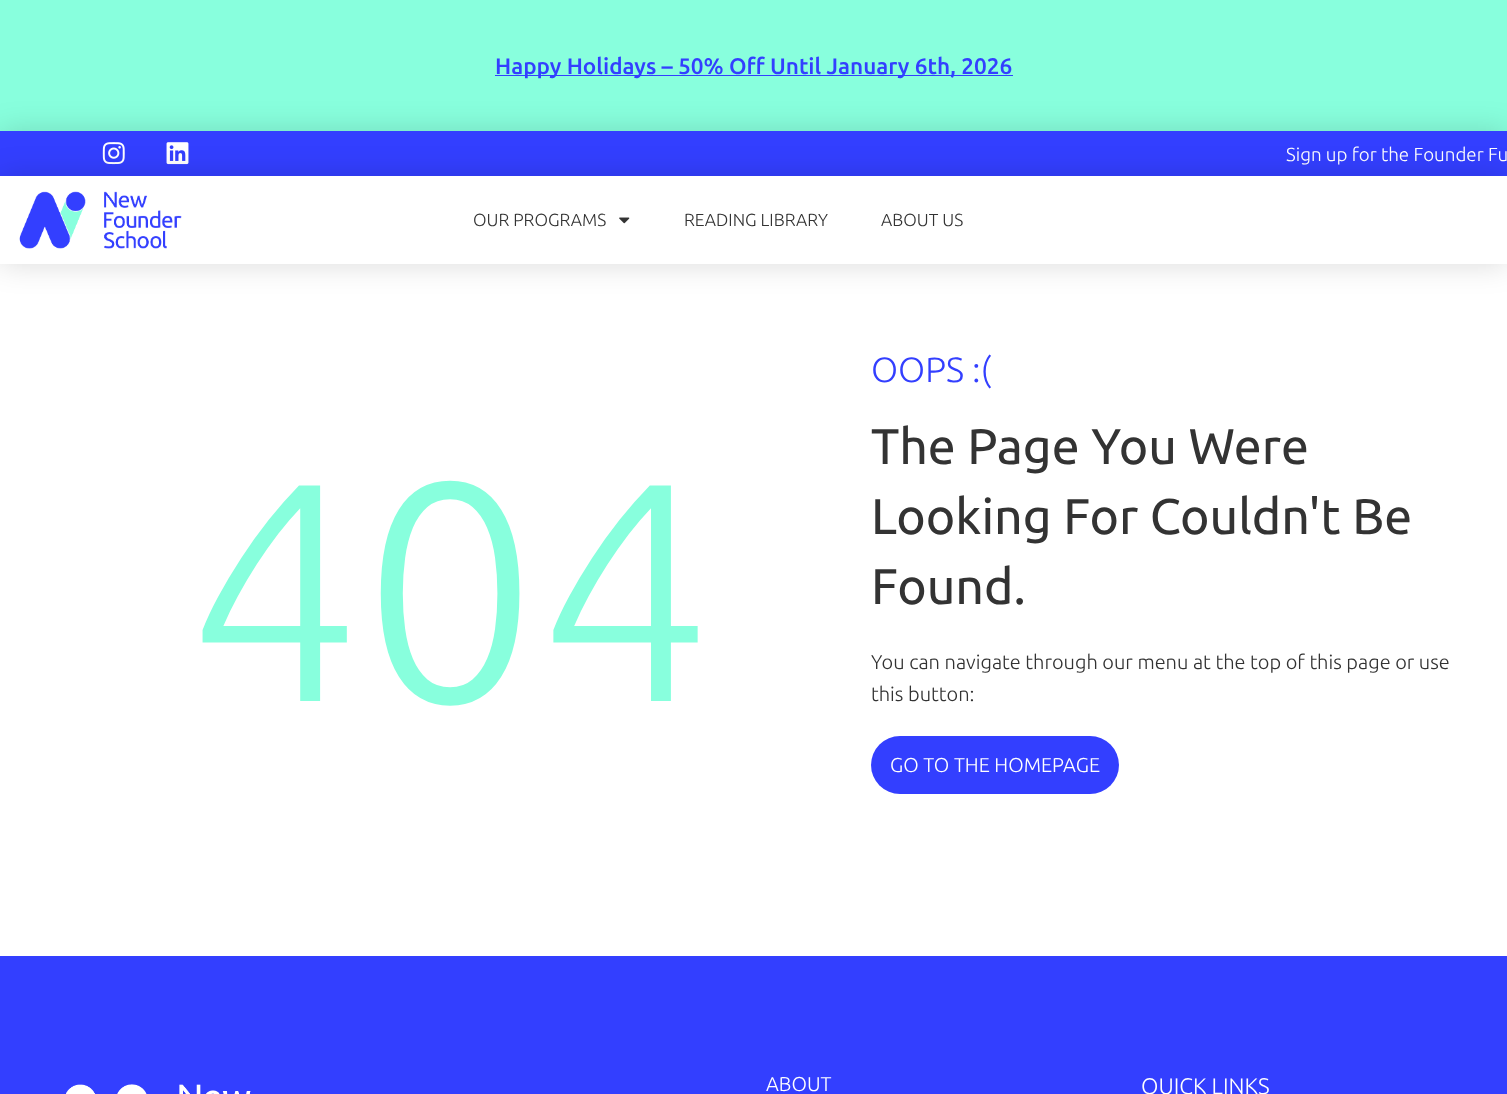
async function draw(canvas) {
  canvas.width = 1507;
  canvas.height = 1094;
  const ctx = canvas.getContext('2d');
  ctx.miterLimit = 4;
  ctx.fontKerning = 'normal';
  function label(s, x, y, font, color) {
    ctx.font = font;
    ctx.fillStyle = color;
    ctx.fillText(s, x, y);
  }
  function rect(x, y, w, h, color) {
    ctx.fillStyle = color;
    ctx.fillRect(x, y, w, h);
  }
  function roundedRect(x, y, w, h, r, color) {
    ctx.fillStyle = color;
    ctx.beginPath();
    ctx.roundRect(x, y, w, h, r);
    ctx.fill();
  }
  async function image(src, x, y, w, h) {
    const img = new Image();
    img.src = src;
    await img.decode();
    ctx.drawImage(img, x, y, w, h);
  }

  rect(0, 0, 1507, 1094, '#fff');
  rect(0, 0, 1507, 131, '#8fd');
  rect(495, 75, 518, 1, '#333fff');
  label('Happy Holidays – 50% Off Until January 6th, 2026', 495, 74, '500 22.5px Ubuntu', '#333fff');
  ctx.fillStyle = '#00000026';
  ctx.filter = 'blur(15px)';
  ctx.beginPath();
  ctx.rect(0, 131, 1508, 45);
  ctx.fill();
  ctx.filter = 'none';
  rect(0, 131, 1507, 45, '#333fff');
  await image('assets/img1.png', 102, 142, 23, 23);
  await image('assets/img2.png', 166, 142, 23, 23);
  label('Sign up for the Founder Fu', 1286, 161, '300 18.75px Ubuntu', '#fff');
  ctx.fillStyle = '#00000026';
  ctx.filter = 'blur(15px)';
  ctx.beginPath();
  ctx.rect(0, 176, 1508, 88);
  ctx.fill();
  ctx.filter = 'none';
  rect(0, 176, 1507, 88, '#fff');
  await image('assets/img3.png', 19, 191, 163, 58);
  label('OUR PROGRAMS', 473, 226, '300 17.5px Ubuntu', '#333');
  await image('assets/img4.png', 619, 217, 11, 7);
  label('READING LIBRARY', 684, 226, '300 17.5px Ubuntu', '#333');
  label('ABOUT US', 881, 226, '300 17.5px Ubuntu', '#333');
  label('404', 187, 701, '300 311px Ubuntu', '#8fd');
  label('OOPS :(', 871, 382, '300 35px Ubuntu', '#333fff');
  label('The Page You Were', 871, 464, '50px Ubuntu', '#333');
  label('Looking For Couldn\'t Be', 871, 534, '50px Ubuntu', '#333');
  label('Found.', 871, 604, '50px Ubuntu', '#333');
  label('You can navigate through our menu at the top of this page or use', 871, 669, '300 20px Ubuntu', '#333');
  label('this button:', 871, 701, '300 20px Ubuntu', '#333');
  roundedRect(871, 736, 248, 58, 29, '#333fff');
  label('GO TO THE HOMEPAGE', 890, 772, '300 20px Ubuntu', '#fff');
  rect(0, 956, 1507, 138, '#333fff');
  await image('assets/img5.png', 66, 1084, 185, 10);
  label('ABOUT', 766, 1091, '300 20px Ubuntu', '#fff');
  label('QUICK LINKS', 1141, 1094, '300 22.5px Ubuntu', '#fff');
}

draw(document.querySelector('canvas'));
